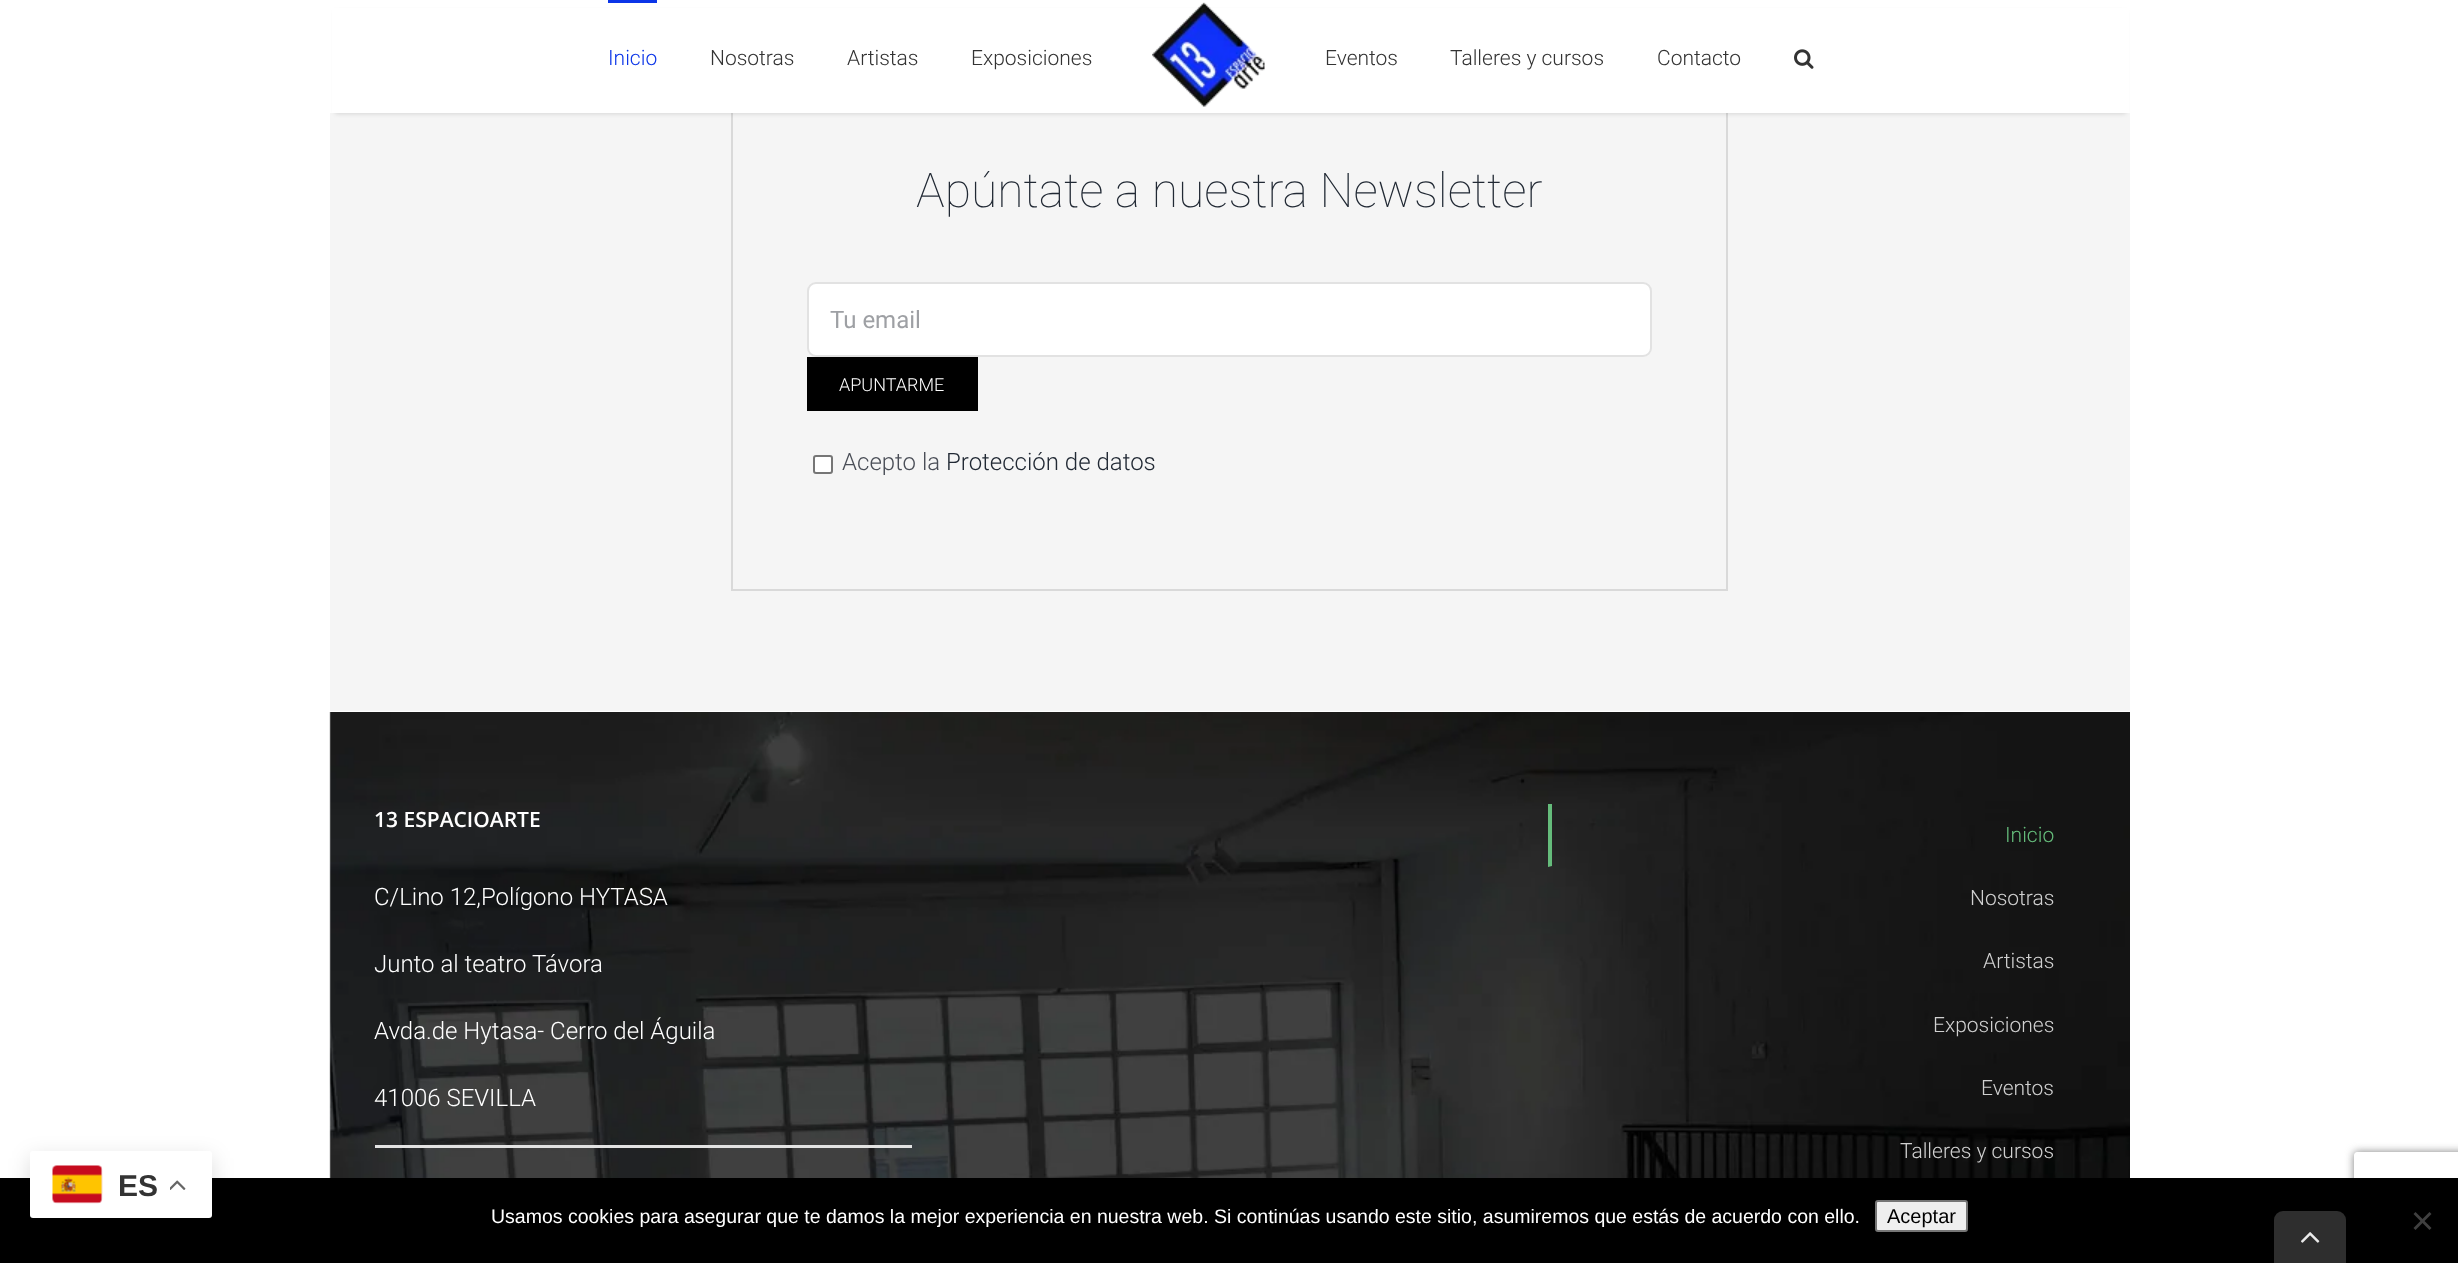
async function draw(canvas) {
  canvas.width = 2458;
  canvas.height = 1263;
  const ctx = canvas.getContext('2d');
  ctx.miterLimit = 4;
  ctx.fontKerning = 'normal';
  function label(s, x, y, font, color) {
    ctx.font = font;
    ctx.fillStyle = color;
    ctx.fillText(s, x, y);
  }
  function rect(x, y, w, h, color) {
    ctx.fillStyle = color;
    ctx.fillRect(x, y, w, h);
  }
  function roundedRect(x, y, w, h, r, color) {
    ctx.fillStyle = color;
    ctx.beginPath();
    ctx.roundRect(x, y, w, h, r);
    ctx.fill();
  }
  async function image(src, x, y, w, h) {
    const img = new Image();
    img.src = src;
    await img.decode();
    ctx.drawImage(img, x, y, w, h);
  }
  let path;

  rect(0, 0, 2458, 1263, '#fff');
  rect(330, 113, 1800, 598, '#f5f5f5');
  ctx.strokeStyle = '#d9d9d9';
  ctx.lineWidth = 2;
  ctx.strokeRect(732, 70, 995, 520);
  ctx.fillStyle = '#0000001f';
  ctx.filter = 'blur(2px)';
  ctx.beginPath();
  ctx.rect(335, 11, 1791, 103);
  ctx.fill();
  ctx.filter = 'none';
  rect(332, 8, 1797, 105, '#fff');
  rect(608, 0, 49, 3, '#0b35e8');
  label('Inicio', 608, 65, '300 21px Roboto', '#0b35e8');
  label('Nosotras', 710, 65, '300 21px Roboto', '#333');
  label('Artistas', 847, 65, '300 21px Roboto', '#333');
  label('Exposiciones', 971, 65, '300 21px Roboto', '#333');
  await image('assets/img1.png', 1152, 2, 113, 105);
  label('Eventos', 1325, 65, '300 21px Roboto', '#333');
  label('Talleres y cursos', 1450, 65, '300 21px Roboto', '#333');
  label('Contacto', 1657, 65, '300 21px Roboto', '#333');
  await image('assets/img2.png', 1794, 49, 20, 20);
  label('Apúntate a nuestra Newsletter', 916, 207, '100 48px Roboto', '#212934');
  ctx.fillStyle = '#fff';
  ctx.beginPath();
  ctx.roundRect(808, 283, 843, 73, 8);
  ctx.fill();
  ctx.strokeStyle = '#e2e2e2';
  ctx.stroke();
  label('Tu email', 830, 328, '24px Roboto', '#9ea0a4');
  rect(807, 357, 171, 54, '#000');
  label('APUNTARME', 839, 391, '300 18px Roboto', '#fff');
  ctx.beginPath();
  ctx.roundRect(814, 456, 18, 17, 2);
  ctx.fill();
  ctx.strokeStyle = '#767676';
  ctx.stroke();
  label('Acepto la', 842, 470, '300 24px Roboto', '#4a4e57');
  label('Protección de datos', 946, 470, '300 24px Roboto', '#212934');
  await image('assets/img3.png', 329, 712, 1801, 466);
  label('13 ESPACIOARTE', 374, 827, '600 21px Open Sans', '#fff');
  label('C/Lino 12,Polígono HYTASA', 374, 905, '300 24px Roboto', '#fff');
  label('Junto al teatro Távora', 374, 972, '300 24px Roboto', '#fff');
  label('Avda.de Hytasa- Cerro del Águila', 374, 1039, '300 24px Roboto', '#fff');
  label('41006 SEVILLA', 374, 1106, '300 24px Roboto', '#fff');
  rect(375, 1145, 537, 3, '#e2e2e2');
  ctx.fillStyle = '#65bc7b';
  path = new Path2D('M1548 867V804H1552V866Z');
  ctx.fill(path);
  label('Inicio', 2005, 842, '300 21px Roboto', '#65bc7b');
  label('Nosotras', 1970, 905, '300 21px Roboto', '#d0d0d0');
  label('Artistas', 1983, 968, '300 21px Roboto', '#d0d0d0');
  label('Exposiciones', 1933, 1032, '300 21px Roboto', '#d0d0d0');
  label('Eventos', 1981, 1095, '300 21px Roboto', '#d0d0d0');
  label('Talleres y cursos', 1900, 1158, '300 21px Roboto', '#d0d0d0');
  ctx.save();
  path = new Path2D('M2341 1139H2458V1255H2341ZM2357 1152H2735C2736.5 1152 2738 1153.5 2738 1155V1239C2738 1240.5 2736.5 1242 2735 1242H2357C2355.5 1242 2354 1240.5 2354 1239V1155C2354 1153.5 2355.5 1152 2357 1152Z');
  ctx.clip(path, 'evenodd');
  ctx.fillStyle = '#808080';
  ctx.filter = 'blur(4px)';
  ctx.beginPath();
  ctx.roundRect(2354, 1152, 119, 90, 3);
  ctx.fill();
  ctx.filter = 'none';
  ctx.restore();
  rect(0, 1178, 2458, 85, '#000');
  ctx.fillStyle = '#00000026';
  ctx.filter = 'blur(11px)';
  ctx.beginPath();
  ctx.roundRect(30, 1158, 182, 68, 3);
  ctx.fill();
  ctx.filter = 'none';
  roundedRect(30, 1151, 182, 67, 3, '#fff');
  await image('assets/img4.png', 52, 1165, 51, 39);
  label('ES', 118, 1196, 'bold 30px Liberation Sans', '#333');
  await image('assets/img5.png', 170, 1180, 16, 10);
  label('Usamos cookies para asegurar que te damos la mejor experiencia en nuestra web. Si continúas usando este sitio, asumiremos que estás de acuerdo con ello.', 491, 1223, '19.5px Liberation Sans', '#fff');
  ctx.fillStyle = '#efefef';
  ctx.beginPath();
  ctx.roundRect(1876, 1201, 91, 30, 2);
  ctx.fill();
  ctx.stroke();
  label('Aceptar', 1887, 1223, '20px Liberation Sans', '#000');
  ctx.fillStyle = '#404040';
  path = new Path2D('M2429.5 1212L2431.5 1214L2415.5 1230L2413.5 1228Z');
  ctx.fill(path);
  path = new Path2D('M2413.5 1214L2415.5 1212L2431.5 1228L2429.5 1230Z');
  ctx.fill(path);
  ctx.fillStyle = '#2e2e2e';
  ctx.beginPath();
  ctx.roundRect(2274, 1211, 72, 52, [9, 9, 0, 0]);
  ctx.fill();
  await image('assets/img6.png', 2301, 1232, 19, 11);
}

draw(document.querySelector('canvas'));
